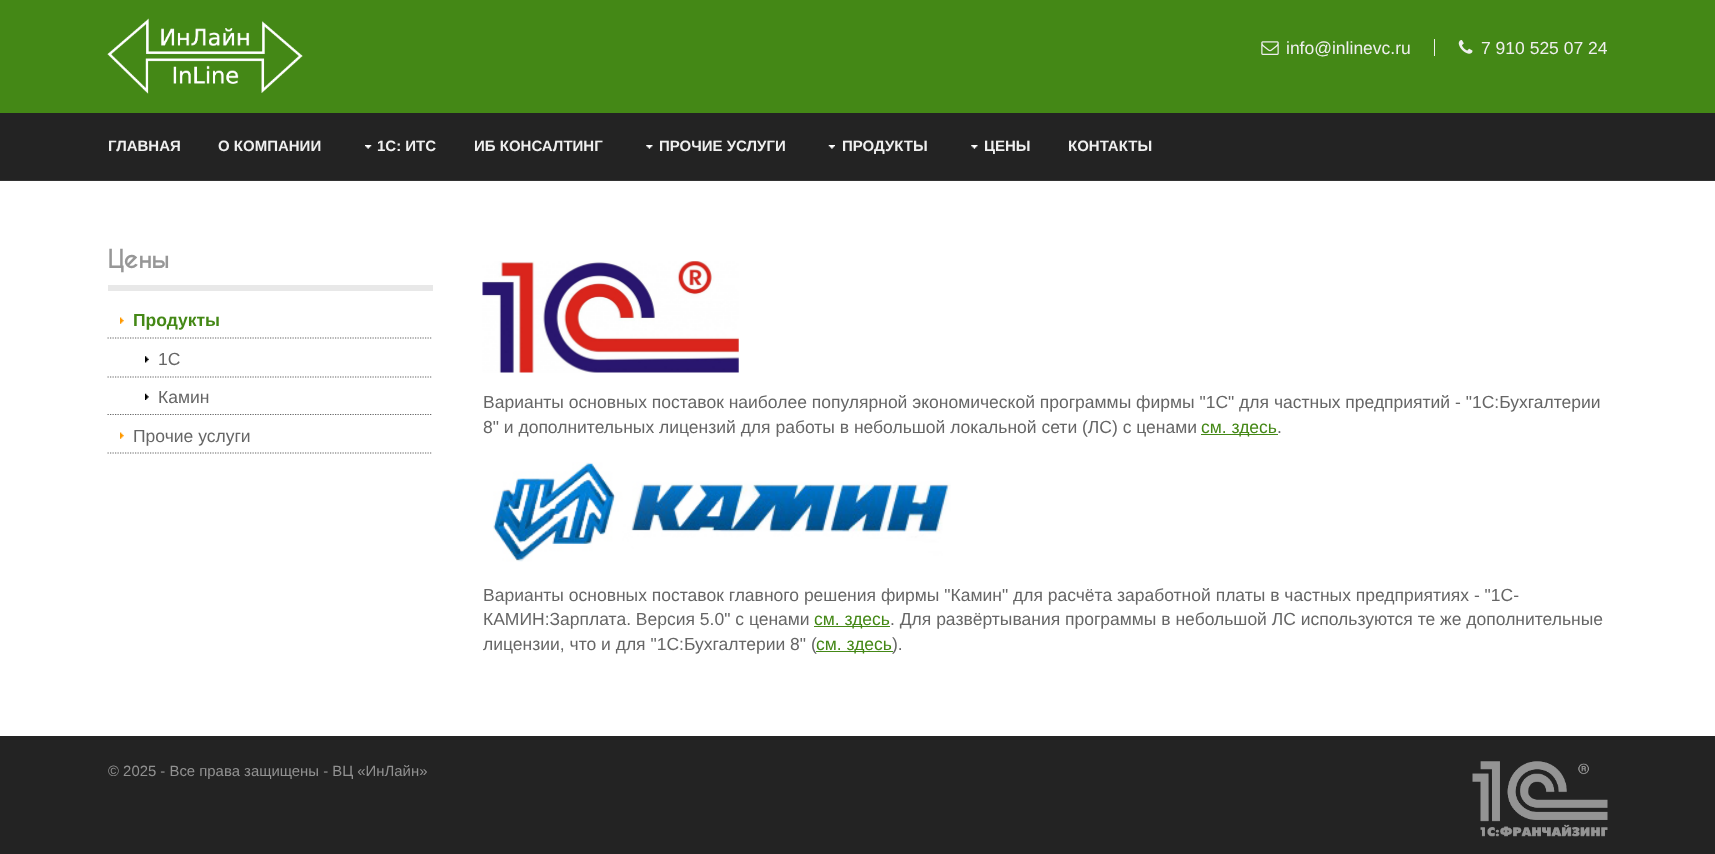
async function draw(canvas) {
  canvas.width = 1715;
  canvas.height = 854;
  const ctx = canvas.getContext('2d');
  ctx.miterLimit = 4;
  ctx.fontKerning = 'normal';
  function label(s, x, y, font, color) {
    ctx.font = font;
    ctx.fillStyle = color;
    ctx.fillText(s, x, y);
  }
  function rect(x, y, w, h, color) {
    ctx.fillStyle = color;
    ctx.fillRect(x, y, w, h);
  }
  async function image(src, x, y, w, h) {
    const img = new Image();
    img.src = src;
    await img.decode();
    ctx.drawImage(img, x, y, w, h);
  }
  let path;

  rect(0, 0, 1715, 854, '#232323');
  rect(0, 0, 1715, 113, '#448816');
  await image('assets/img1.png', 107, 18, 196, 76);
  await image('assets/img2.png', 1261, 41, 18, 14);
  label('info@inlinevc.ru', 1286, 54, '17.5px Liberation Sans', '#efefef');
  rect(1434, 39, 1, 17, '#efefef');
  await image('assets/img3.png', 1458, 40, 15, 14);
  label('7 910 525 07 24', 1481, 54, '17.5px Liberation Sans', '#efefef');
  rect(0, 180, 1715, 1, '#333');
  label('ГЛАВНАЯ', 108, 151, 'bold 15px Liberation Sans', '#efefef');
  label('О КОМПАНИИ', 218, 151, 'bold 15px Liberation Sans', '#efefef');
  await image('assets/img4.png', 365, 145, 7, 4);
  label('1С: ИТС', 377, 151, 'bold 15px Liberation Sans', '#efefef');
  label('ИБ КОНСАЛТИНГ', 474, 151, 'bold 15px Liberation Sans', '#efefef');
  await image('assets/img5.png', 646, 145, 7, 4);
  label('ПРОЧИЕ УСЛУГИ', 659, 151, 'bold 15px Liberation Sans', '#efefef');
  await image('assets/img6.png', 828, 145, 7, 4);
  label('ПРОДУКТЫ', 842, 151, 'bold 15px Liberation Sans', '#efefef');
  await image('assets/img5.png', 971, 145, 7, 4);
  label('ЦЕНЫ', 984, 151, 'bold 15px Liberation Sans', '#efefef');
  label('КОНТАКТЫ', 1068, 151, 'bold 15px Liberation Sans', '#efefef');
  rect(0, 181, 1715, 555, '#fff');
  rect(108, 285, 325, 6, '#e8e8e8');
  label('Цены', 108, 268, 'bold 24.5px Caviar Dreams', '#979797');
  await image('assets/img7.png', 120, 317, 4, 7);
  path = new Path2D('M107.5 338H432.5');
  ctx.strokeStyle = '#666';
  ctx.lineWidth = 1.2;
  ctx.setLineDash([1.25, 1.25]);
  ctx.stroke(path);
  label('Продукты', 133, 326, 'bold 17.5px Liberation Sans', '#448816');
  await image('assets/img8.png', 145, 356, 4, 7);
  path = new Path2D('M107.5 377H432.5');
  ctx.stroke(path);
  label('1С', 158, 365, '17.5px Liberation Sans', '#666');
  await image('assets/img9.png', 145, 393, 4, 7);
  path = new Path2D('M107.5 414.5H432.5');
  ctx.stroke(path);
  label('Камин', 158, 403, '17.5px Liberation Sans', '#666');
  await image('assets/img7.png', 120, 432, 4, 7);
  path = new Path2D('M107.5 453H432.5');
  ctx.stroke(path);
  label('Прочие услуги', 133, 442, '17.5px Liberation Sans', '#666');
  await image('assets/img10.png', 482, 261, 257, 112);
  label('Варианты основных поставок наиболее популярной экономической программы фирмы "1С" для частных предприятий - "1С:Бухгалтерии', 483, 408, '17.5px Liberation Sans', '#666');
  label('8" и дополнительных лицензий для работы в небольшой локальной сети (ЛС) с ценами', 483, 433, '17.5px Liberation Sans', '#666');
  rect(1201, 434, 77, 1, '#448816');
  label('см. здесь', 1201, 433, '17.5px Liberation Sans', '#448816');
  label('.', 1277, 433, '17.5px Liberation Sans', '#666');
  await image('assets/img11.png', 493, 462, 458, 100);
  label('Варианты основных поставок главного решения фирмы "Камин" для расчёта заработной платы в частных предприятиях - "1С-', 483, 601, '17.5px Liberation Sans', '#666');
  label('КАМИН:Зарплата. Версия 5.0" с ценами', 483, 625, '17.5px Liberation Sans', '#666');
  rect(814, 626, 76, 1, '#448816');
  label('см. здесь', 814, 625, '17.5px Liberation Sans', '#448816');
  label('. Для развёртывания программы в небольшой ЛС используются те же дополнительные', 890, 625, '17.5px Liberation Sans', '#666');
  label('лицензии, что и для "1С:Бухгалтерии 8" (', 483, 650, '17.5px Liberation Sans', '#666');
  rect(816, 651, 77, 1, '#448816');
  label('см. здесь', 816, 650, '17.5px Liberation Sans', '#448816');
  label(').', 892, 650, '17.5px Liberation Sans', '#666');
  label('© 2025 - Все права защищены - ВЦ «ИнЛайн»', 108, 776, '14.9px Liberation Sans', '#919191');
  await image('assets/img12.png', 1472, 761, 136, 76);
}

draw(document.querySelector('canvas'));
